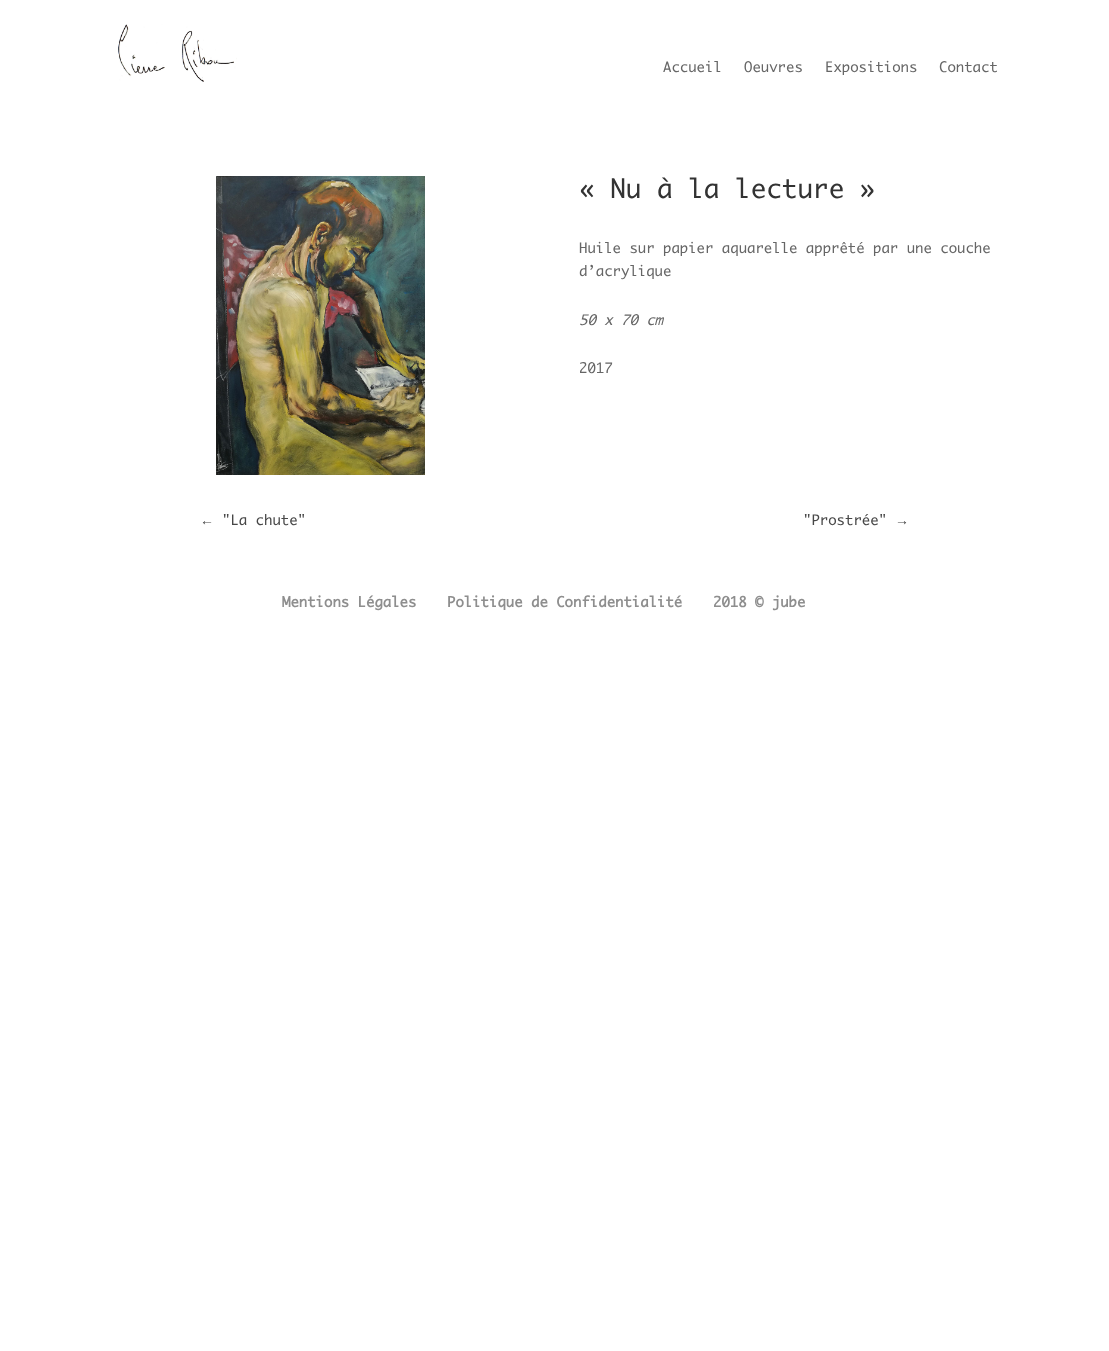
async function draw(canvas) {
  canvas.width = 1109;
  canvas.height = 1351;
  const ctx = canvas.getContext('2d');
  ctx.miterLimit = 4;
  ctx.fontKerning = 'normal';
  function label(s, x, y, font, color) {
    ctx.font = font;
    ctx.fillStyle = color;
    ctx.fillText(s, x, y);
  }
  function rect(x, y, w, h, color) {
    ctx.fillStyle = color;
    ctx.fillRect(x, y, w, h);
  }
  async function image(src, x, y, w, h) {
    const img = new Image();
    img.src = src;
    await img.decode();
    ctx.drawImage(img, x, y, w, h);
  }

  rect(0, 0, 1109, 1351, '#fff');
  await image('assets/img1.png', 118, 24, 119, 58);
  label('Accueil', 663, 72, '14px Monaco', '#666');
  label('Oeuvres', 744, 72, '14px Monaco', '#666');
  label('Expositions', 825, 72, '14px Monaco', '#666');
  label('Contact', 939, 72, '14px Monaco', '#666');
  await image('assets/img2.png', 216, 176, 209, 299);
  label('« Nu à la lecture »', 579, 198, '26px Monaco', '#333');
  label('Huile sur papier aquarelle apprêté par une couche', 579, 253, '14px Monaco', '#666');
  label('d’acrylique', 579, 276, '14px Monaco', '#666');
  label('50 x 70 cm', 579, 325, 'italic 14px Monaco', '#666');
  label('2017', 579, 373, '14px Monaco', '#666');
  label('←', 200, 525, '14px Liberation Sans', '#474747');
  label('"La chute"', 222, 525, '14px Monaco', '#474747');
  label('"Prostrée"', 803, 525, '14px Monaco', '#474747');
  label('→', 895, 525, '14px Liberation Sans', '#474747');
  label('Mentions Légales', 282, 607, 'bold 14px Monaco', '#8e8e8e');
  label('Politique de Confidentialité', 447, 607, 'bold 14px Monaco', '#8e8e8e');
  label('2018 © jube', 713, 607, 'bold 14px Monaco', '#8e8e8e');
}

draw(document.querySelector('canvas'));
